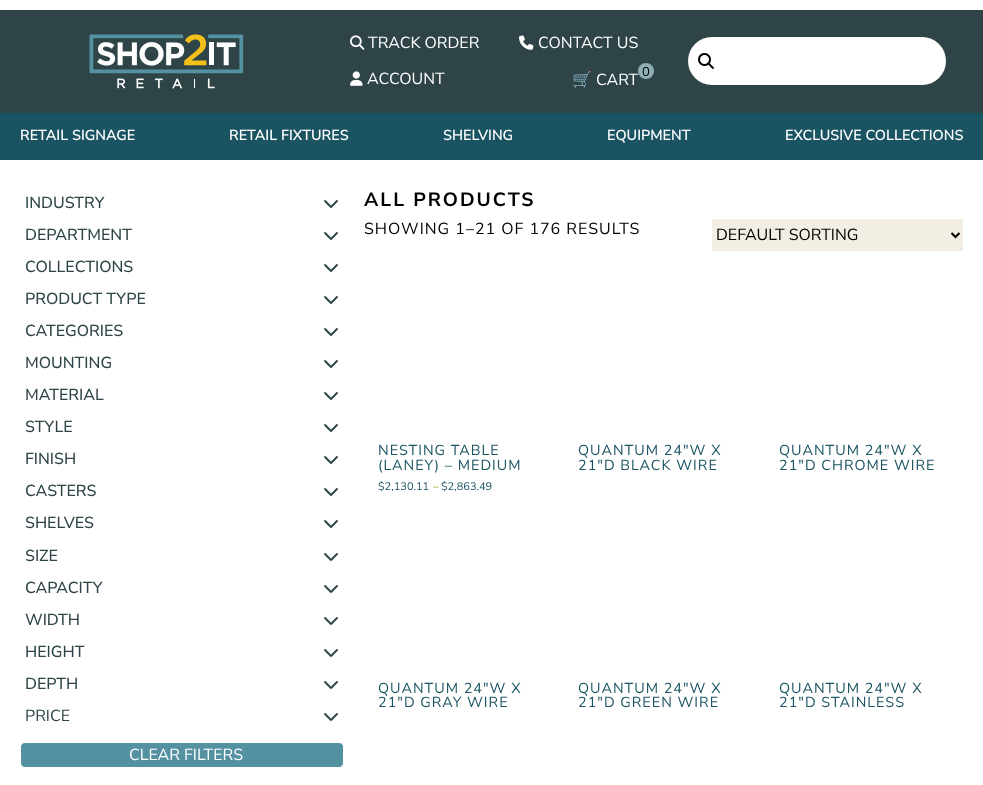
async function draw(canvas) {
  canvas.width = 983;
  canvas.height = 785;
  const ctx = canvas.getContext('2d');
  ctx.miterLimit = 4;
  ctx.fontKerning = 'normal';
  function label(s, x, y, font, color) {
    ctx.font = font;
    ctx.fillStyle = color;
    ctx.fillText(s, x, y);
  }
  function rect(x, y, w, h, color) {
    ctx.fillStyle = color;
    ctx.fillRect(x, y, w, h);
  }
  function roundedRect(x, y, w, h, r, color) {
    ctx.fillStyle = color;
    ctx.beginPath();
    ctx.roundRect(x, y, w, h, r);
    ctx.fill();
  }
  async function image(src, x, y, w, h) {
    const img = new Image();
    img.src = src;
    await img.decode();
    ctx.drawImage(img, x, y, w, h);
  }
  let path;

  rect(0, 0, 983, 785, '#fff');
  rect(0, 10, 983, 103, '#2e4447');
  await image('assets/img1.png', 89, 34, 155, 55);
  await image('assets/img2.png', 350, 35, 15, 15);
  label('TRACK ORDER', 368, 48, '16px Nunito Sans', '#fff');
  await image('assets/img3.png', 519, 35, 15, 15);
  label('CONTACT US', 538, 48, '16px Nunito Sans', '#fff');
  await image('assets/img4.png', 350, 71, 13, 15);
  label('ACCOUNT', 367, 84, '16px Nunito Sans', '#fff');
  label('🛒', 572, 85, '16px Noto Color Emoji', '#fff');
  label('CART', 596, 85, '16px Nunito Sans', '#fff');
  ctx.fillStyle = '#8faeb5';
  ctx.beginPath();
  ctx.arc(646, 71, 8, 0, 2 * Math.PI);
  ctx.fill();
  label('0', 642, 76, '13px Nunito Sans', '#000');
  roundedRect(688, 37, 258, 48, 24, '#fff');
  await image('assets/img5.png', 698, 53, 16, 16);
  rect(0, 113, 983, 47, '#1a5462');
  label('RETAIL SIGNAGE', 20, 140, '600 14.4px Nunito Sans', '#fff');
  label('RETAIL FIXTURES', 229, 140, '600 14.4px Nunito Sans', '#fff');
  label('SHELVING', 443, 140, '600 14.4px Nunito Sans', '#fff');
  label('EQUIPMENT', 607, 140, '600 14.4px Nunito Sans', '#fff');
  label('EXCLUSIVE COLLECTIONS', 785, 140, '600 14.4px Nunito Sans', '#fff');
  label('INDUSTRY', 25, 208, '500 16px Nunito Sans', '#2e4447');
  await image('assets/img6.png', 324, 200, 14, 8);
  label('DEPARTMENT', 25, 240, '500 16px Nunito Sans', '#2e4447');
  await image('assets/img6.png', 324, 232, 14, 8);
  label('COLLECTIONS', 25, 272, '500 16px Nunito Sans', '#2e4447');
  await image('assets/img6.png', 324, 264, 14, 8);
  label('PRODUCT TYPE', 25, 304, '500 16px Nunito Sans', '#2e4447');
  await image('assets/img6.png', 324, 296, 14, 8);
  label('CATEGORIES', 25, 336, '500 16px Nunito Sans', '#2e4447');
  await image('assets/img6.png', 324, 328, 14, 8);
  label('MOUNTING', 25, 368, '500 16px Nunito Sans', '#2e4447');
  await image('assets/img6.png', 324, 360, 14, 8);
  label('MATERIAL', 25, 400, '500 16px Nunito Sans', '#2e4447');
  await image('assets/img6.png', 324, 392, 14, 8);
  label('STYLE', 25, 432, '500 16px Nunito Sans', '#2e4447');
  await image('assets/img6.png', 324, 424, 14, 8);
  label('FINISH', 25, 464, '500 16px Nunito Sans', '#2e4447');
  await image('assets/img6.png', 324, 456, 14, 8);
  label('CASTERS', 25, 496, '500 16px Nunito Sans', '#2e4447');
  await image('assets/img6.png', 324, 488, 14, 8);
  label('SHELVES', 25, 528, '500 16px Nunito Sans', '#2e4447');
  await image('assets/img6.png', 324, 520, 14, 8);
  label('SIZE', 25, 561, '500 16px Nunito Sans', '#2e4447');
  await image('assets/img6.png', 324, 553, 14, 8);
  label('CAPACITY', 25, 593, '500 16px Nunito Sans', '#2e4447');
  await image('assets/img6.png', 324, 585, 14, 8);
  label('WIDTH', 25, 625, '500 16px Nunito Sans', '#2e4447');
  await image('assets/img6.png', 324, 617, 14, 8);
  label('HEIGHT', 25, 657, '500 16px Nunito Sans', '#2e4447');
  await image('assets/img6.png', 324, 649, 14, 8);
  label('DEPTH', 25, 689, '500 16px Nunito Sans', '#2e4447');
  await image('assets/img6.png', 324, 681, 14, 8);
  label('PRICE', 25, 721, '16px Nunito Sans', '#2e4447');
  await image('assets/img6.png', 324, 713, 14, 8);
  ctx.fillStyle = '#5491a1';
  ctx.beginPath();
  ctx.roundRect(20.5, 742.5, 323, 25, 4.5);
  ctx.fill();
  ctx.strokeStyle = '#fff';
  ctx.stroke();
  label('CLEAR FILTERS', 129, 760, '16px Nunito Sans', '#fff');
  ctx.letterSpacing = '2px';
  label('ALL PRODUCTS', 364, 206, 'bold 19.25px Nunito Sans', '#000');
  ctx.letterSpacing = '1px';
  label('SHOWING 1–21 OF 176 RESULTS', 364, 234, '16px Nunito Sans', '#000');
  rect(712, 219, 251, 32, '#f2eee4');
  path = new Path2D('M951.5 233L955.5 237L959.5 233');
  ctx.strokeStyle = '#000';
  ctx.lineWidth = 2;
  ctx.stroke(path);
  ctx.letterSpacing = '0px';
  label('DEFAULT SORTING', 716, 240, '16px Nunito Sans', '#000');
  ctx.letterSpacing = '1px';
  label('NESTING TABLE', 378, 455, '14.4px Nunito Sans', '#1a5462');
  label('(LANEY) – MEDIUM', 378, 470, '14.4px Nunito Sans', '#1a5462');
  ctx.letterSpacing = '0px';
  label('$2,130.11', 378, 490, '11px Nunito Sans', '#1a5462');
  label('–', 433, 490, '11px Nunito Sans', '#958e09');
  label('$2,863.49', 441, 490, '11px Nunito Sans', '#1a5462');
  ctx.letterSpacing = '1px';
  label('QUANTUM 24″W X', 578, 455, '14.4px Nunito Sans', '#1a5462');
  label('21″D BLACK WIRE', 578, 470, '14.4px Nunito Sans', '#1a5462');
  label('QUANTUM 24″W X', 779, 455, '14.4px Nunito Sans', '#1a5462');
  label('21″D CHROME WIRE', 779, 470, '14.4px Nunito Sans', '#1a5462');
  label('QUANTUM 24″W X', 378, 693, '14.4px Nunito Sans', '#1a5462');
  label('21″D GRAY WIRE', 378, 707, '14.4px Nunito Sans', '#1a5462');
  label('QUANTUM 24″W X', 578, 693, '14.4px Nunito Sans', '#1a5462');
  label('21″D GREEN WIRE', 578, 707, '14.4px Nunito Sans', '#1a5462');
  label('QUANTUM 24″W X', 779, 693, '14.4px Nunito Sans', '#1a5462');
  label('21″D STAINLESS', 779, 707, '14.4px Nunito Sans', '#1a5462');
}

draw(document.querySelector('canvas'));
